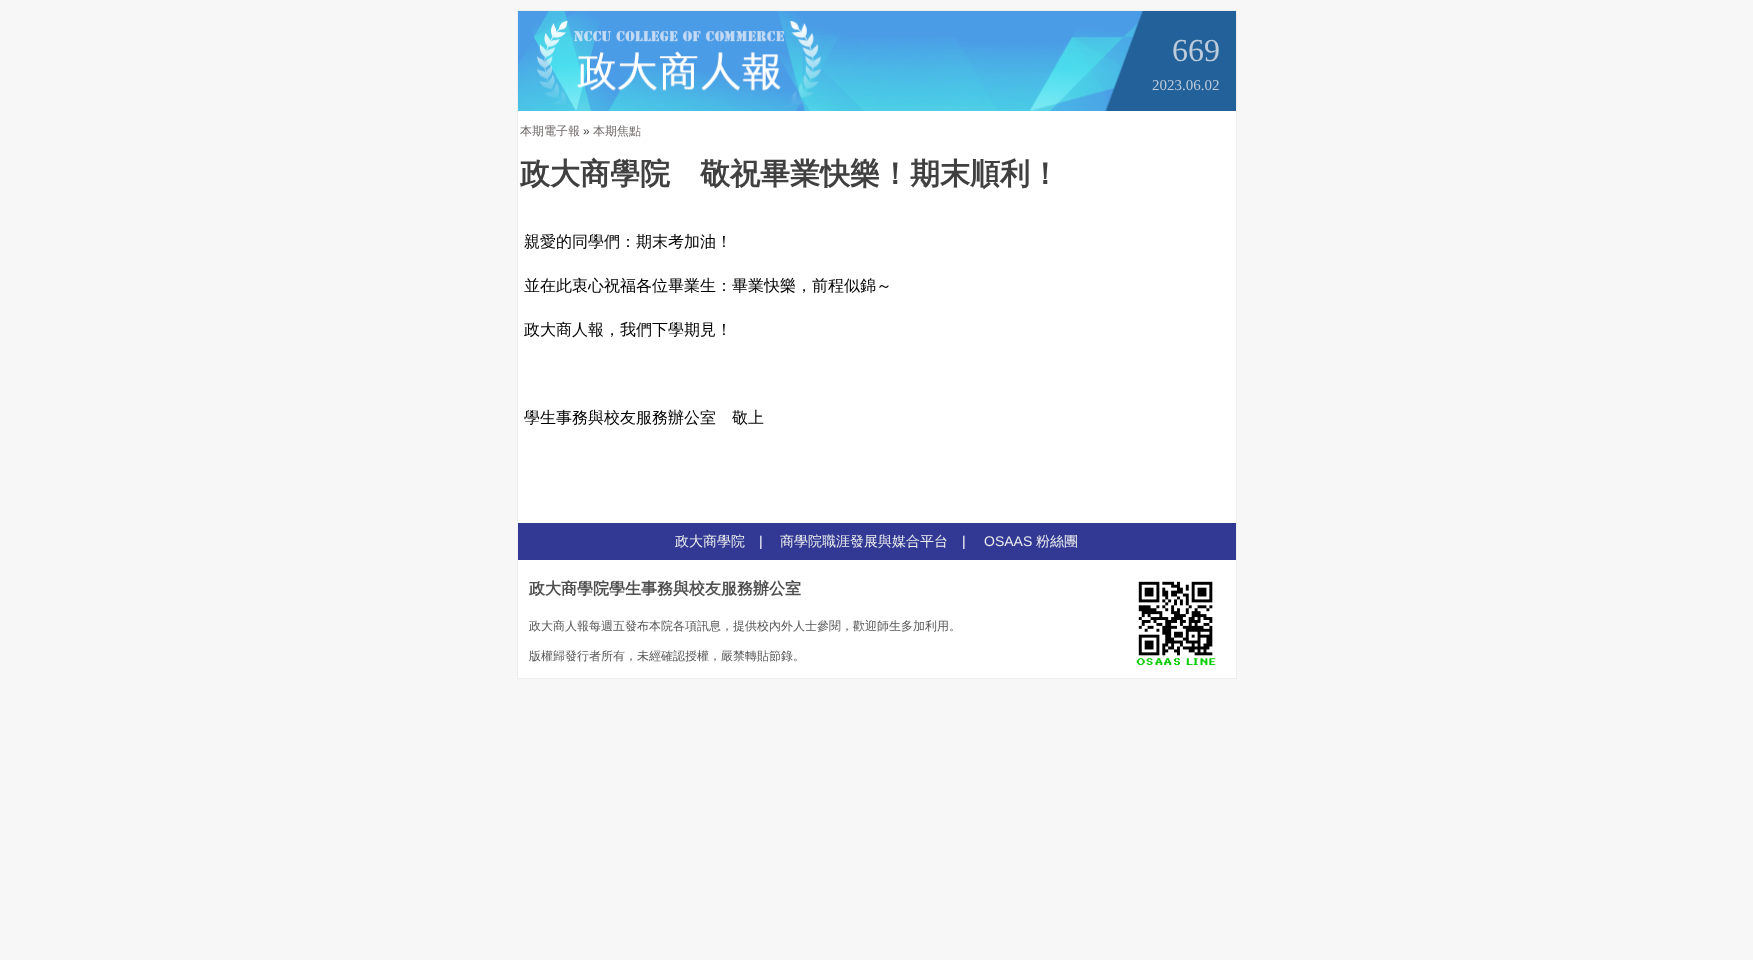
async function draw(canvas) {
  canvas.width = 1753;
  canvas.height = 960;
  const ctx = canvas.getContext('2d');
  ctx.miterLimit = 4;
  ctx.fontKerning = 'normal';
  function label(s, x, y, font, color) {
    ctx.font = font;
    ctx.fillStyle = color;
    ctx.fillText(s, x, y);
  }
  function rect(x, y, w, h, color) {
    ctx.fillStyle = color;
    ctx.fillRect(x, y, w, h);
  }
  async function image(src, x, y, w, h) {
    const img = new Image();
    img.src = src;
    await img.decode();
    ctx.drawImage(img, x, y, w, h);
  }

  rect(0, 0, 1753, 960, '#f7f7f7');
  rect(518, 111, 718, 567, '#fff');
  rect(517, 10, 720, 1, '#eee');
  rect(1236, 10, 1, 669, '#eee');
  rect(517, 678, 720, 1, '#eee');
  rect(517, 10, 1, 669, '#eee');
  await image('assets/img1.png', 518, 11, 718, 100);
  label('669', 1172, 61, '32px Liberation Serif', '#becbdb');
  label('2023.06.02', 1152, 90, '15px Liberation Serif', '#becbdb');
  label('本期電子報', 520, 135, '500 12px WenQuanYi Zen Hei', '#6f6868');
  label('»', 583, 135, '12px Liberation Sans', '#404040');
  label('本期焦點', 593, 135, '500 12px WenQuanYi Zen Hei', '#6f6868');
  label('政大商學院　敬祝畢業快樂！期末順利！', 520, 184, 'bold 30px WenQuanYi Zen Hei', '#404040');
  label('親愛的同學們：期末考加油！', 524, 247, '500 16px WenQuanYi Zen Hei', '#000');
  label('並在此衷心祝福各位畢業生：畢業快樂，前程似錦～', 524, 291, '500 16px WenQuanYi Zen Hei', '#000');
  label('政大商人報，我們下學期見！', 524, 335, '500 16px WenQuanYi Zen Hei', '#000');
  label('學生事務與校友服務辦公室　敬上', 524, 423, '500 16px WenQuanYi Zen Hei', '#000');
  rect(518, 523, 718, 37, '#313994');
  label('政大商學院', 675, 546, '500 14px WenQuanYi Zen Hei', '#eee');
  label('|', 759, 546, '14px Liberation Sans', '#fff');
  label('商學院職涯發展與媒合平台', 780, 546, '500 14px WenQuanYi Zen Hei', '#eee');
  label('|', 962, 546, '14px Liberation Sans', '#fff');
  label('OSAAS', 984, 546, '14px Liberation Sans', '#eee');
  label('粉絲團', 1036, 546, '500 14px WenQuanYi Zen Hei', '#eee');
  label('政大商學院學生事務與校友服務辦公室', 529, 594, 'bold 16px WenQuanYi Zen Hei', '#505050');
  label('政大商人報每週五發布本院各項訊息，提供校內外人士參閱，歡迎師生多加利用。', 529, 630, '500 12px WenQuanYi Zen Hei', '#575757');
  label('版權歸發行者所有，未經確認授權，嚴禁轉貼節錄。', 529, 660, '500 12px WenQuanYi Zen Hei', '#575757');
  await image('assets/img2.png', 1136, 581, 80, 85);
}

draw(document.querySelector('canvas'));
